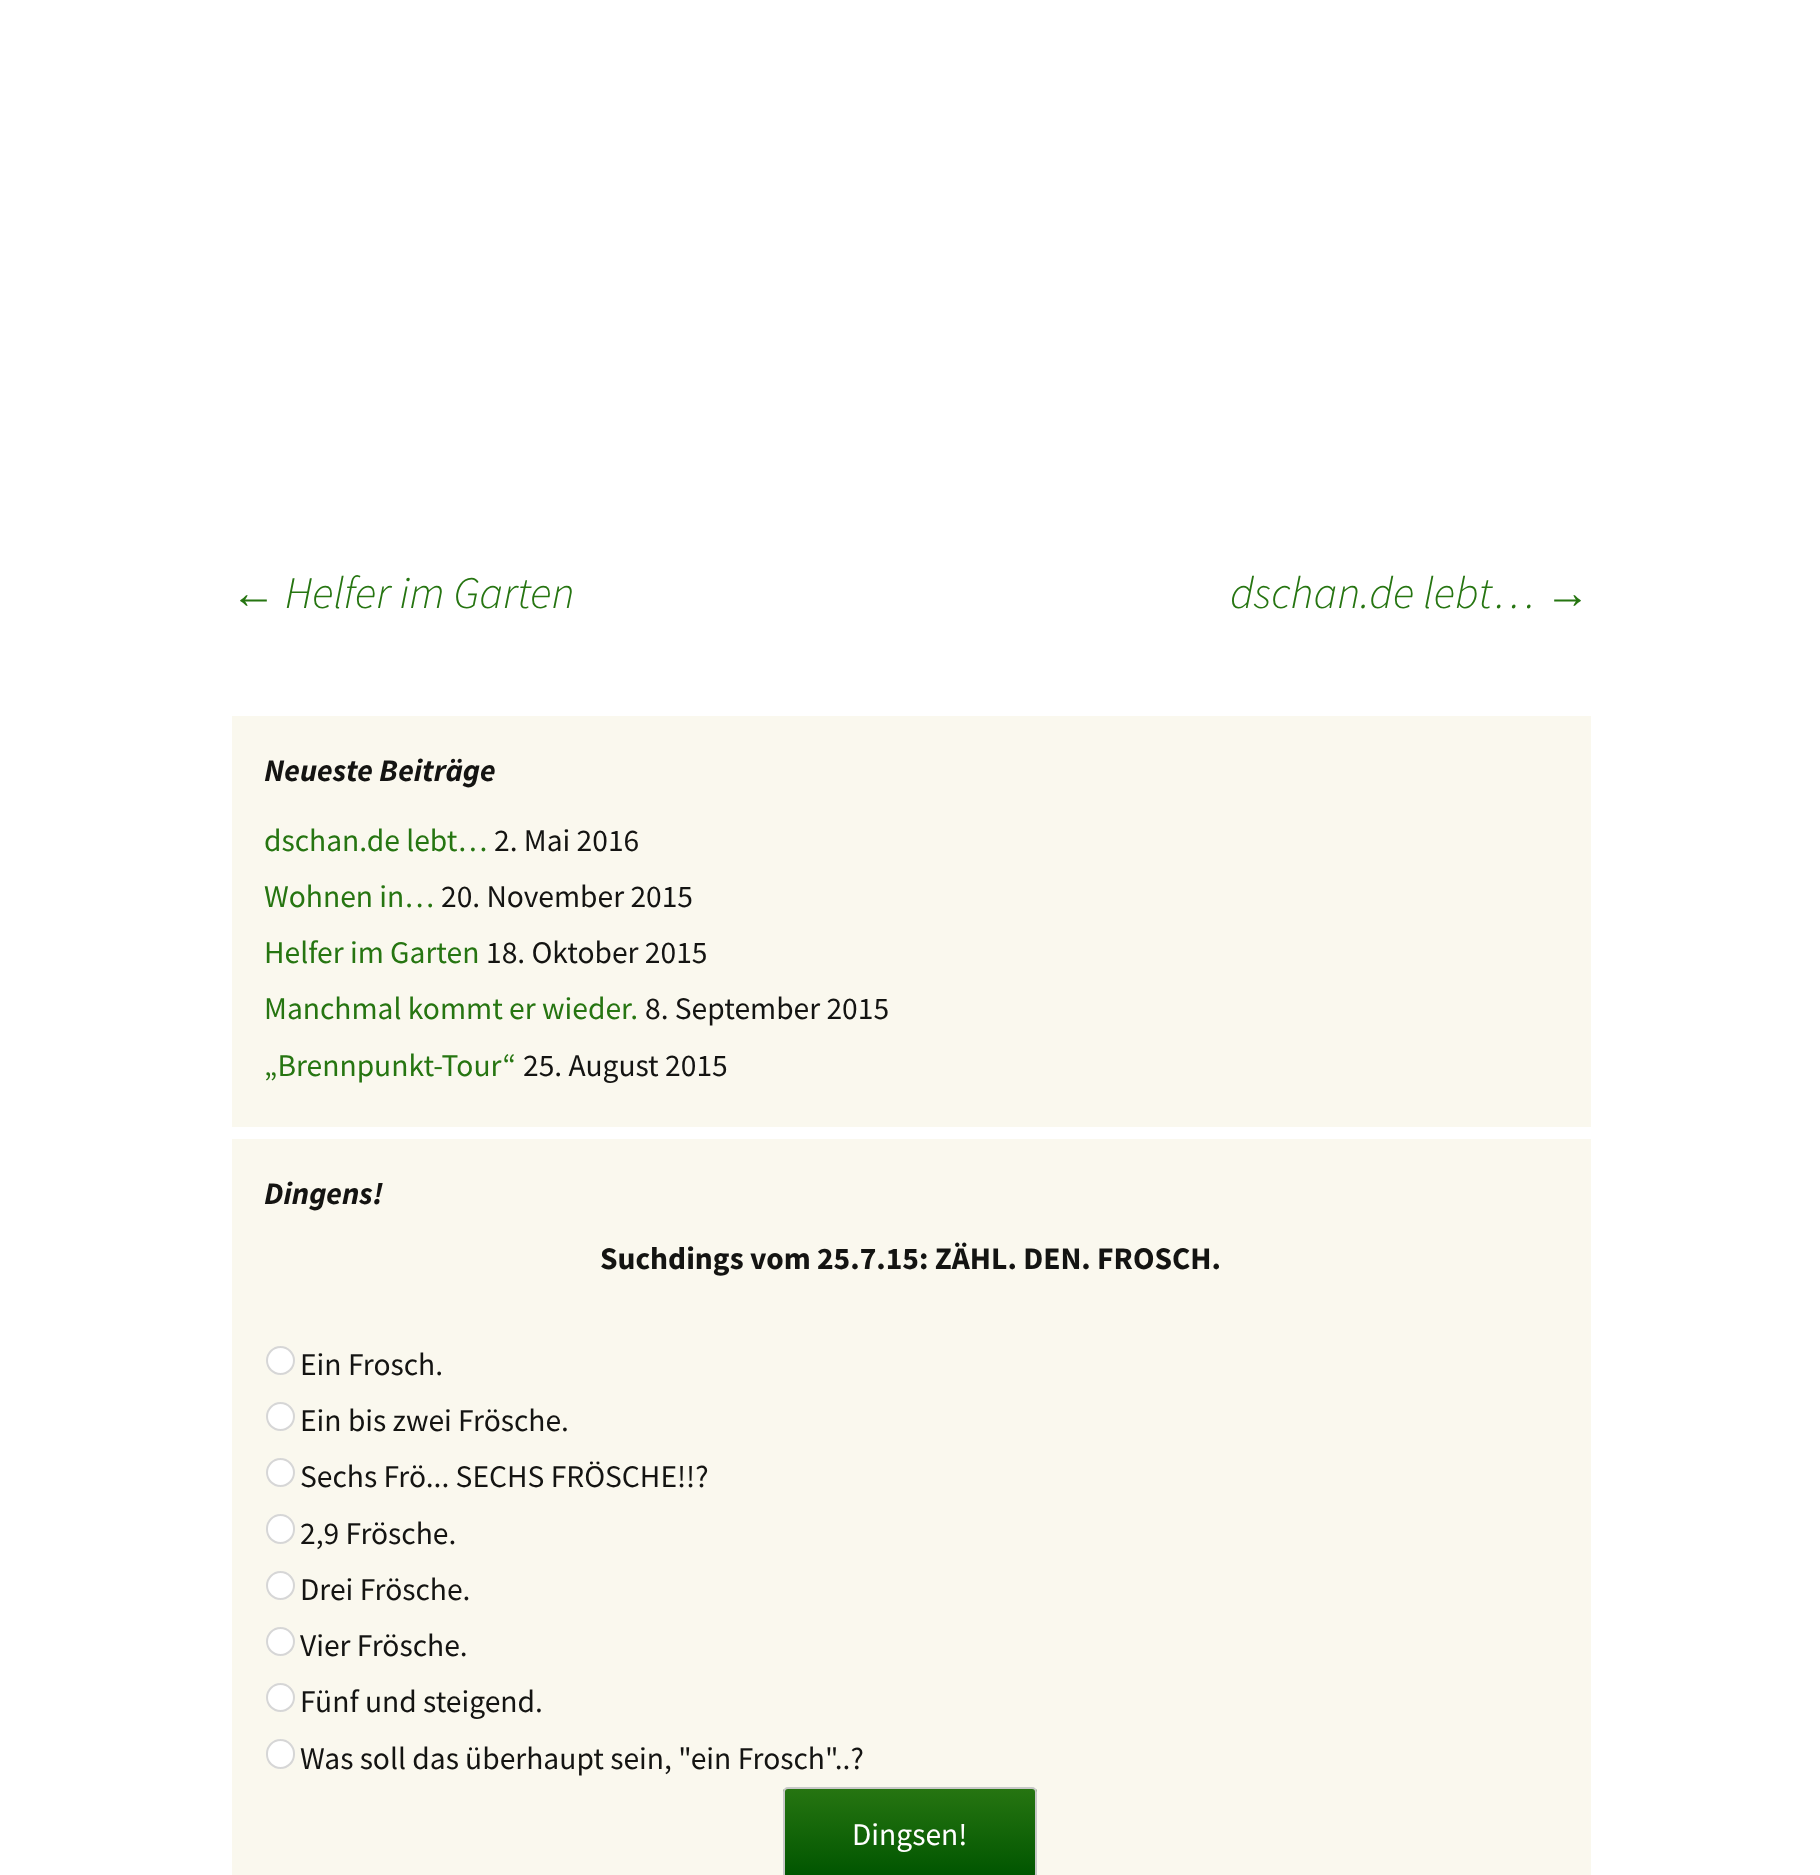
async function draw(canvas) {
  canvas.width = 1820;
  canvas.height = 1875;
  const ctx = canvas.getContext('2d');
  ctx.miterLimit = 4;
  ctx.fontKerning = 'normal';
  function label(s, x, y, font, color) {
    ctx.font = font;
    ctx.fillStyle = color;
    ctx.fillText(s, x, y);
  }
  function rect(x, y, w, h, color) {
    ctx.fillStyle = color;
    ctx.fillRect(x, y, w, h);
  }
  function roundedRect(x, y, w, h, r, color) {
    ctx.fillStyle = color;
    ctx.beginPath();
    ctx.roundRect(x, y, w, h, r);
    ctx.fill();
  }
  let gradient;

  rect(0, 0, 1820, 1875, '#fff');
  label('←', 231, 608, 'italic 45px Liberation Sans', '#267511');
  label('Helfer im Garten', 285, 608, 'italic 300 45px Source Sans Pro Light', '#267511');
  label('dschan.de lebt…', 1230, 608, 'italic 300 45px Source Sans Pro Light', '#267511');
  label('→', 1545, 608, 'italic 45px Liberation Sans', '#267511');
  rect(232, 716, 1359, 411, '#faf8ee');
  label('Neueste Beiträge', 264, 781, 'italic bold 31.5px Source Sans Pro', '#141412');
  label('dschan.de lebt…', 264, 851, '31.5px Source Sans Pro', '#267511');
  label('2. Mai 2016', 494, 851, '31.5px Source Sans Pro', '#141412');
  label('Wohnen in…', 264, 907, '31.5px Source Sans Pro', '#267511');
  label('20. November 2015', 441, 907, '31.5px Source Sans Pro', '#141412');
  label('Helfer im Garten', 264, 963, '31.5px Source Sans Pro', '#267511');
  label('18. Oktober 2015', 486, 963, '31.5px Source Sans Pro', '#141412');
  label('Manchmal kommt er wieder.', 264, 1019, '31.5px Source Sans Pro', '#267511');
  label('8. September 2015', 645, 1019, '31.5px Source Sans Pro', '#141412');
  label('„Brennpunkt-Tour“', 264, 1076, '31.5px Source Sans Pro', '#267511');
  label('25. August 2015', 523, 1076, '31.5px Source Sans Pro', '#141412');
  rect(232, 1139, 1359, 736, '#faf8ee');
  label('Dingens!', 264, 1204, 'italic bold 31.5px Source Sans Pro', '#141412');
  label('Suchdings vom 25.7.15: ZÄHL. DEN. FROSCH.', 600, 1269, 'bold 31.5px Source Sans Pro', '#141412');
  ctx.fillStyle = '#fff';
  ctx.beginPath();
  ctx.arc(280.5, 1360.5, 14.5, 0, 2 * Math.PI);
  ctx.fill();
  ctx.beginPath();
  ctx.arc(280.5, 1360.5, 13.5, 0, 2 * Math.PI);
  ctx.strokeStyle = '#7676764d';
  ctx.lineWidth = 2;
  ctx.stroke();
  label('Ein Frosch.', 300, 1375, '31.5px Source Sans Pro', '#141412');
  ctx.fillStyle = '#fff';
  ctx.beginPath();
  ctx.arc(280.5, 1416.5, 14.5, 0, 2 * Math.PI);
  ctx.fill();
  ctx.beginPath();
  ctx.arc(280.5, 1416.5, 13.5, 0, 2 * Math.PI);
  ctx.stroke();
  label('Ein bis zwei Frösche.', 300, 1431, '31.5px Source Sans Pro', '#141412');
  ctx.fillStyle = '#fff';
  ctx.beginPath();
  ctx.arc(280.5, 1472.5, 14.5, 0, 2 * Math.PI);
  ctx.fill();
  ctx.beginPath();
  ctx.arc(280.5, 1472.5, 13.5, 0, 2 * Math.PI);
  ctx.stroke();
  label('Sechs Frö... SECHS FRÖSCHE!!?', 300, 1487, '31.5px Source Sans Pro', '#141412');
  roundedRect(266, 1514, 29, 30, 14.5, '#fff');
  ctx.beginPath();
  ctx.roundRect(267, 1515, 27, 28, 13.5);
  ctx.stroke();
  label('2,9 Frösche.', 300, 1544, '31.5px Source Sans Pro', '#141412');
  ctx.fillStyle = '#fff';
  ctx.beginPath();
  ctx.arc(280.5, 1585.5, 14.5, 0, 2 * Math.PI);
  ctx.fill();
  ctx.beginPath();
  ctx.arc(280.5, 1585.5, 13.5, 0, 2 * Math.PI);
  ctx.stroke();
  label('Drei Frösche.', 300, 1600, '31.5px Source Sans Pro', '#141412');
  ctx.fillStyle = '#fff';
  ctx.beginPath();
  ctx.arc(280.5, 1641.5, 14.5, 0, 2 * Math.PI);
  ctx.fill();
  ctx.beginPath();
  ctx.arc(280.5, 1641.5, 13.5, 0, 2 * Math.PI);
  ctx.stroke();
  label('Vier Frösche.', 300, 1656, '31.5px Source Sans Pro', '#141412');
  ctx.fillStyle = '#fff';
  ctx.beginPath();
  ctx.arc(280.5, 1697.5, 14.5, 0, 2 * Math.PI);
  ctx.fill();
  ctx.beginPath();
  ctx.arc(280.5, 1697.5, 13.5, 0, 2 * Math.PI);
  ctx.stroke();
  label('Fünf und steigend.', 300, 1712, '31.5px Source Sans Pro', '#141412');
  roundedRect(266, 1739, 29, 30, 14.5, '#fff');
  ctx.beginPath();
  ctx.roundRect(267, 1740, 27, 28, 13.5);
  ctx.stroke();
  label('Was soll das überhaupt sein, "ein Frosch"..?', 300, 1769, '31.5px Source Sans Pro', '#141412');
  ctx.save();
  ctx.beginPath();
  ctx.roundRect(783, 1787, 254, 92, 5);
  ctx.clip();
  gradient = ctx.createLinearGradient(910, 1789, 910, 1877);
  gradient.addColorStop(0, '#267511');
  gradient.addColorStop(1, '#050');
  ctx.fillStyle = gradient;
  ctx.fillRect(783, 1789, 254, 86);
  ctx.restore();
  ctx.beginPath();
  ctx.roundRect(784, 1788, 252, 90, 4);
  ctx.strokeStyle = '#c8c8c8';
  ctx.stroke();
  label('Dingsen!', 852, 1845, '31.5px Source Sans Pro', '#fff');
}

draw(document.querySelector('canvas'));
